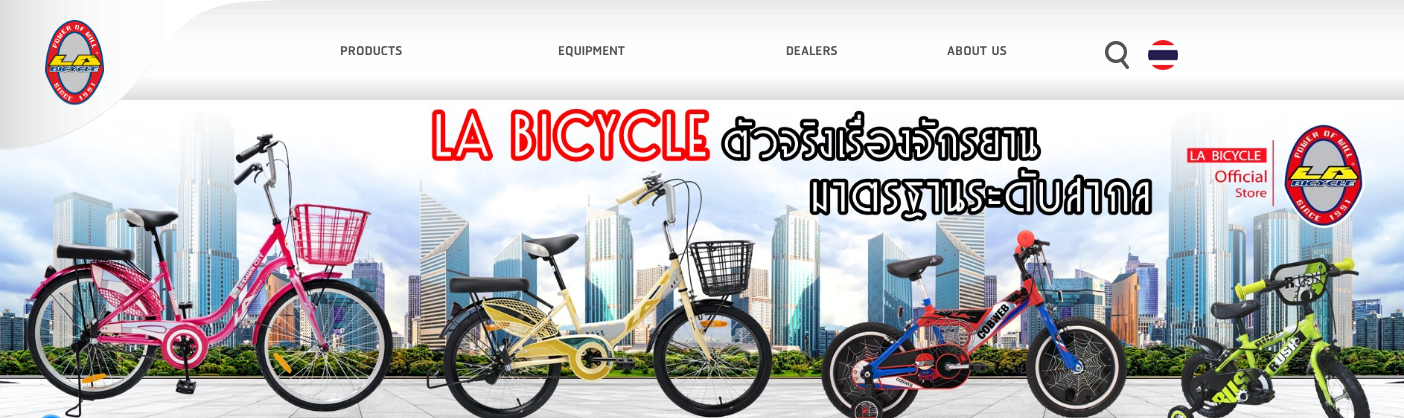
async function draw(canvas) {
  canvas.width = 1404;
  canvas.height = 418;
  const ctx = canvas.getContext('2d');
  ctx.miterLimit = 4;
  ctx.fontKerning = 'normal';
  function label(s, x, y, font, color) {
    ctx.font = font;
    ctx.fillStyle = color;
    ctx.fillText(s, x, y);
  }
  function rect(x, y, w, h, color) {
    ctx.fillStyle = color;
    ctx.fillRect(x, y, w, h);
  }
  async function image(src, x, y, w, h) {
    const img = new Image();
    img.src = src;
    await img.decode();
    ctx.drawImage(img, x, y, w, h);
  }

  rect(0, 0, 1404, 418, '#fff');
  await image('assets/img1.png', 119, 0, 1285, 100);
  await image('assets/img6.png', 0, 100, 1404, 318);
  await image('assets/img2.png', 0, 0, 279, 150);
  await image('assets/img3.png', 45, 20, 59, 85);
  label('PRODUCTS', 340, 55, 'bold 16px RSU', '#545454');
  label('EQUIPMENT', 558, 55, 'bold 16px RSU', '#545454');
  label('DEALERS', 786, 55, 'bold 16px RSU', '#545454');
  label('ABOUT US', 947, 55, 'bold 16px RSU', '#545454');
  await image('assets/img4.png', 1105, 41, 24, 28);
  await image('assets/img5.png', 1148, 40, 30, 30);
}

draw(document.querySelector('canvas'));
